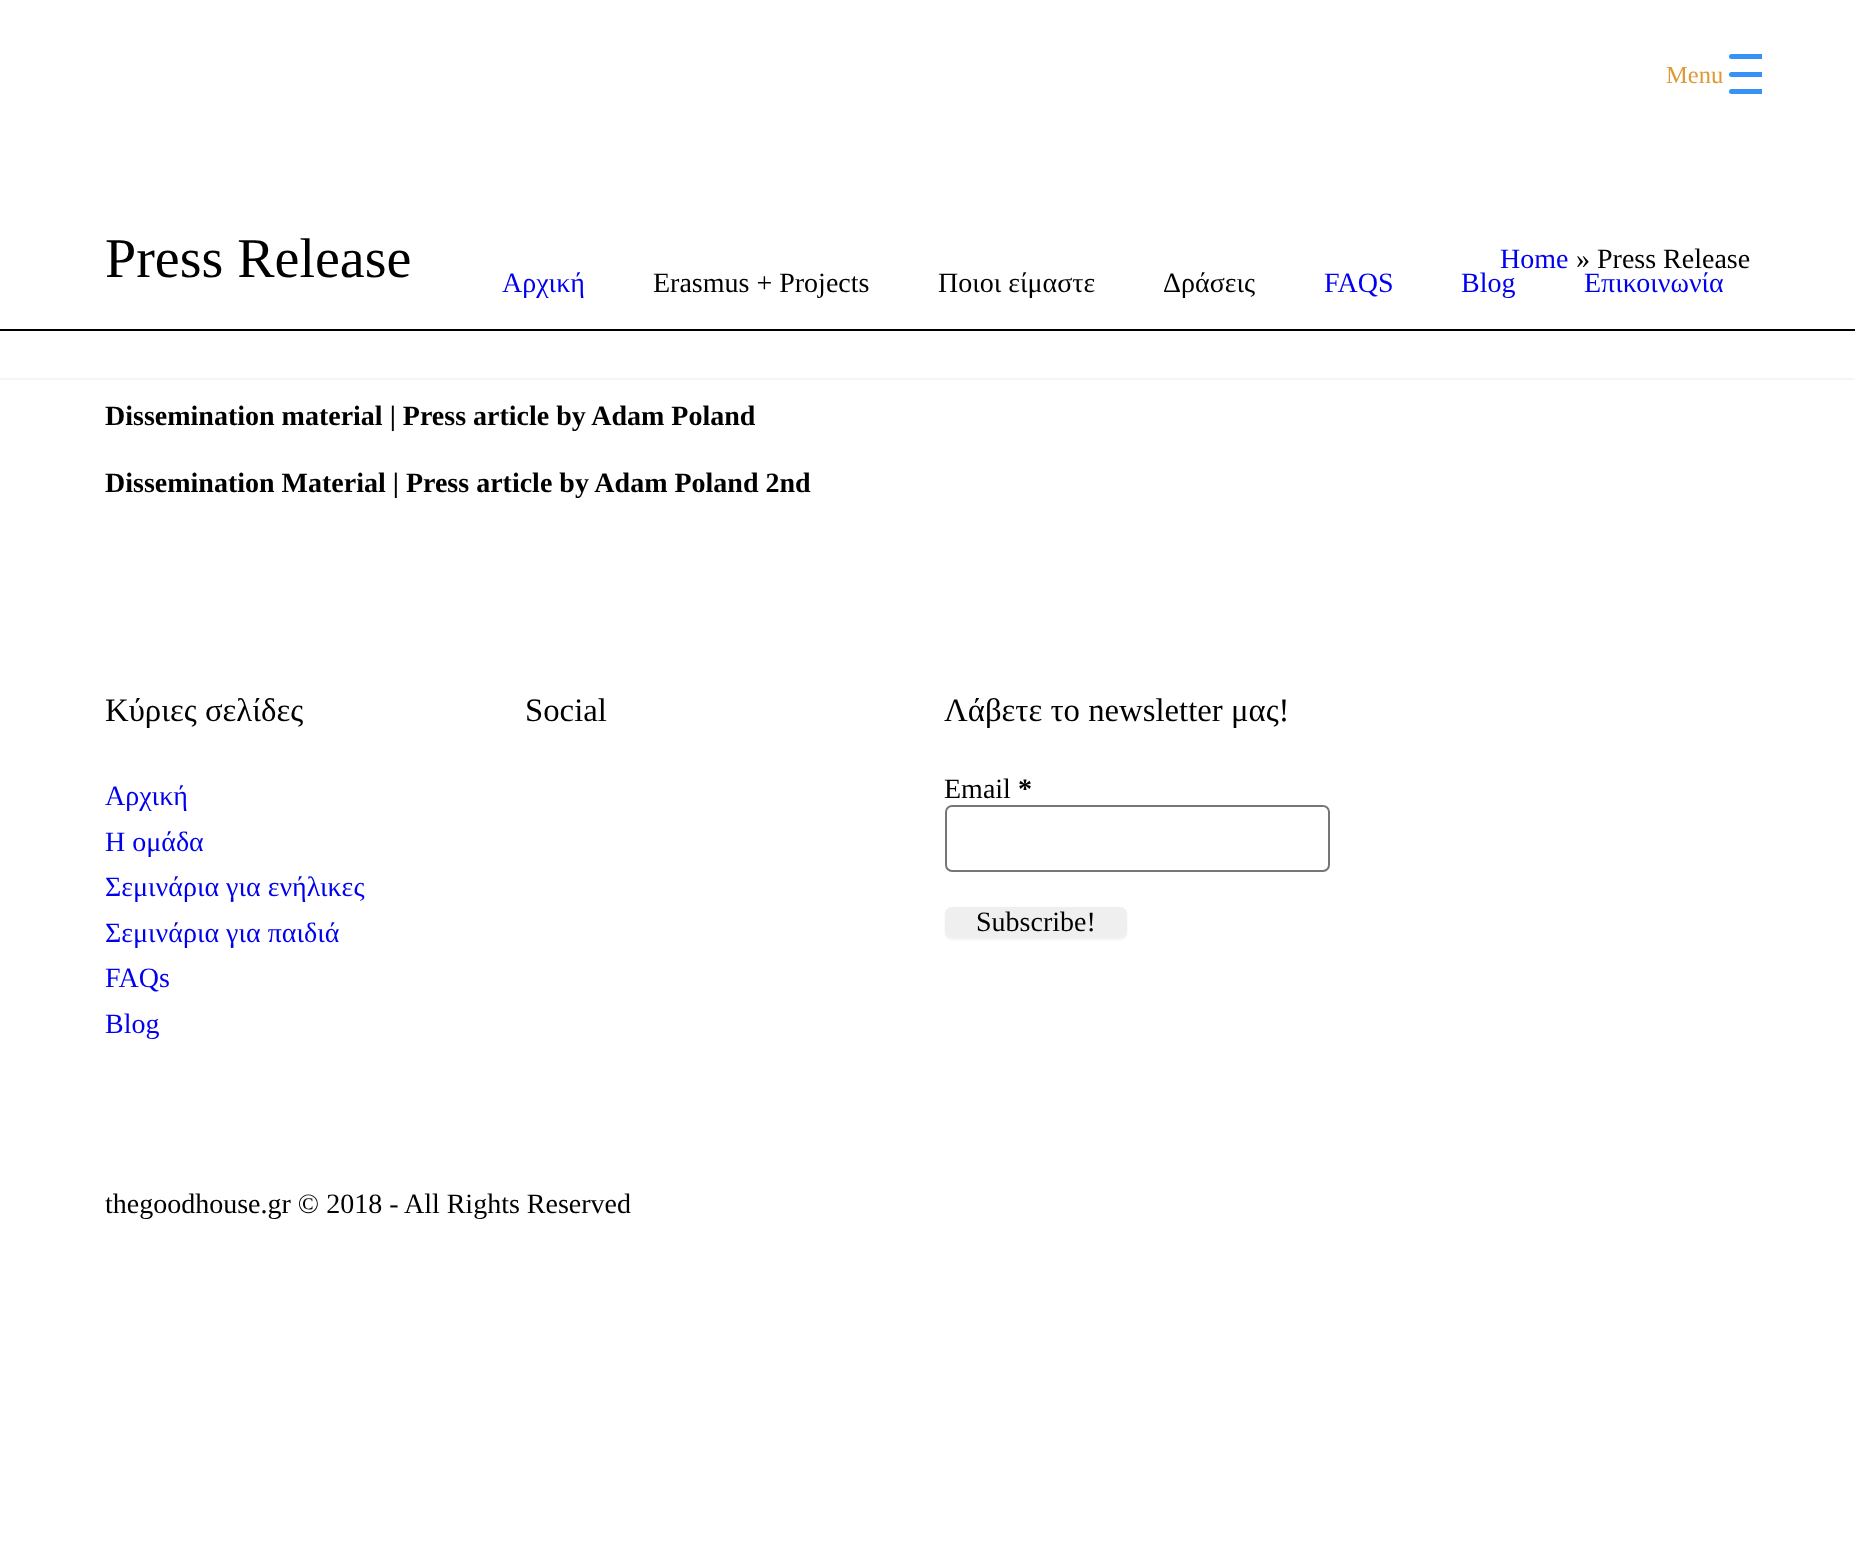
async function draw(canvas) {
  canvas.width = 1855;
  canvas.height = 1560;
  const ctx = canvas.getContext('2d');
  ctx.miterLimit = 4;
  ctx.fontKerning = 'normal';
  function label(s, x, y, font, color) {
    ctx.font = font;
    ctx.fillStyle = color;
    ctx.fillText(s, x, y);
  }
  function rect(x, y, w, h, color) {
    ctx.fillStyle = color;
    ctx.fillRect(x, y, w, h);
  }
  function roundedRect(x, y, w, h, r, color) {
    ctx.fillStyle = color;
    ctx.beginPath();
    ctx.roundRect(x, y, w, h, r);
    ctx.fill();
  }

  rect(0, 0, 1855, 1560, '#fff');
  rect(0, 329, 1855, 2, '#000');
  ctx.save();
  ctx.beginPath();
  ctx.rect(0, 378, 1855, 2);
  ctx.clip();
  ctx.fillStyle = '#0000000d';
  ctx.filter = 'blur(1px)';
  ctx.beginPath();
  ctx.rect(0, 2, 1855, 378);
  ctx.fill();
  ctx.filter = 'none';
  ctx.restore();
  label('Menu', 1666, 83, '24.5px Liberation Serif', '#d93');
  ctx.fillStyle = '#3692f7';
  ctx.beginPath();
  ctx.roundRect(1729, 72, 33, 5, [2.5, 0, 0, 2.5]);
  ctx.fill();
  ctx.beginPath();
  ctx.roundRect(1729, 54, 33, 5, [2.5, 0, 0, 2.5]);
  ctx.fill();
  ctx.beginPath();
  ctx.roundRect(1729, 89, 33, 5, [2.5, 0, 0, 2.5]);
  ctx.fill();
  label('Press Release', 105, 277, '56px Liberation Serif', '#000');
  label('Home', 1500, 268, '28px Liberation Serif', '#00e');
  label('» Press Release', 1576, 268, '28px Liberation Serif', '#000');
  label('Dissemination material | Press article by Adam Poland', 105, 425, 'bold 28px Liberation Serif', '#000');
  label('Dissemination Material | Press article by Adam Poland 2nd', 105, 492, 'bold 28px Liberation Serif', '#000');
  label('Αρχική', 502, 292, '28px Liberation Serif', '#00e');
  label('Erasmus + Projects', 653, 292, '28px Liberation Serif', '#000');
  label('Ποιοι είμαστε', 938, 292, '28px Liberation Serif', '#000');
  label('Δράσεις', 1163, 292, '28px Liberation Serif', '#000');
  label('FAQS', 1324, 292, '28px Liberation Serif', '#00e');
  label('Blog', 1461, 292, '28px Liberation Serif', '#00e');
  label('Επικοινωνία', 1584, 292, '28px Liberation Serif', '#00e');
  label('Κύριες σελίδες', 105, 721, '32.75px Liberation Serif', '#000');
  label('Αρχική', 105, 805, '28px Liberation Serif', '#00e');
  label('Η ομάδα', 105, 851, '28px Liberation Serif', '#00e');
  label('Σεμινάρια για ενήλικες', 105, 896, '28px Liberation Serif', '#00e');
  label('Σεμινάρια για παιδιά', 105, 942, '28px Liberation Serif', '#00e');
  label('FAQs', 105, 987, '28px Liberation Serif', '#00e');
  label('Blog', 105, 1033, '28px Liberation Serif', '#00e');
  label('Social', 525, 721, '32.75px Liberation Serif', '#000');
  label('Λάβετε το newsletter μας!', 944, 721, '32.75px Liberation Serif', '#000');
  label('Email', 944, 798, '28px Liberation Serif', '#000');
  label('*', 1018, 798, 'bold 28px Liberation Serif', '#000');
  ctx.beginPath();
  ctx.roundRect(946, 806, 383, 65, 6);
  ctx.strokeStyle = '#767676';
  ctx.lineWidth = 2;
  ctx.stroke();
  ctx.fillStyle = '#0000000d';
  ctx.filter = 'blur(1px)';
  ctx.beginPath();
  ctx.roundRect(945, 908, 182, 32, 7);
  ctx.fill();
  ctx.filter = 'none';
  roundedRect(945, 907, 182, 31, 7, '#efefef');
  label('Subscribe!', 976, 931, '28px Liberation Serif', '#000');
  label('thegoodhouse.gr © 2018 - All Rights Reserved', 105, 1213, '28px Liberation Serif', '#000');
}

draw(document.querySelector('canvas'));
